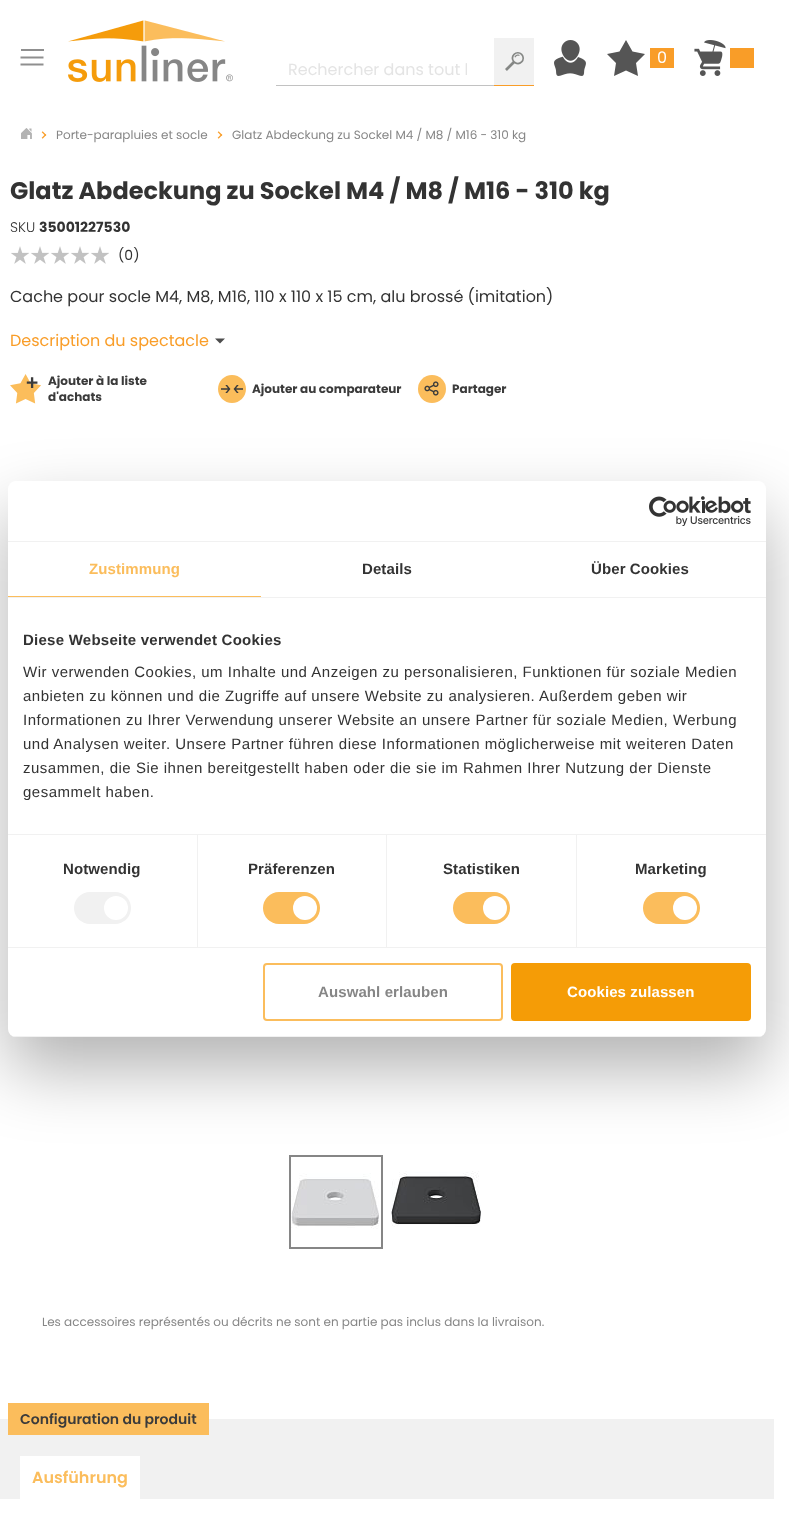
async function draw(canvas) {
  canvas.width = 789;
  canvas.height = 1518;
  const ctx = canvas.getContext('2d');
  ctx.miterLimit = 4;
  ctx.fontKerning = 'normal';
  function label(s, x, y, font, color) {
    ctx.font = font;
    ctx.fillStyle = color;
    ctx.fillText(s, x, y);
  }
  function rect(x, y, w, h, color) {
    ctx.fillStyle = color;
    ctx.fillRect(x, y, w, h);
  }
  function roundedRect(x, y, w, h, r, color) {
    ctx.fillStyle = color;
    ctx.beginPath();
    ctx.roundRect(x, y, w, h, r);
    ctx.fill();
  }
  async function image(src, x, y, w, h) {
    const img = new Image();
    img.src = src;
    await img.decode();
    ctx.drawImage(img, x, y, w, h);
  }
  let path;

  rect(0, 0, 789, 1518, '#fff');
  rect(21, 49, 23, 2, '#8f8f8f');
  path = new Path2D('M21.5 57.5H42.5M21.5 64.5H42.5');
  ctx.strokeStyle = '#8f8f8f';
  ctx.lineWidth = 2;
  ctx.lineCap = 'square';
  ctx.stroke(path);
  await image('assets/img1.png', 68, 20, 165, 62);
  await image('assets/img2.png', 554, 40, 32, 36);
  ctx.fillStyle = '#555';
  path = new Path2D('M626 40L632.5 51.5L645 54L636 63L638 76L626 70.5L614 76L616 63L607 54L619.5 51.5L626 40');
  ctx.fill(path, 'evenodd');
  rect(650, 48, 24, 20, '#f99d28');
  label('0', 657, 63, '16px Poppins', '#fff');
  await image('assets/img3.png', 694, 40, 32, 36);
  rect(730, 48, 24, 20, '#f99d28');
  rect(276, 85, 218, 1, '#c2c2c2');
  ctx.save();
  ctx.beginPath();
  ctx.rect(288, 57, 179, 25);
  ctx.clip();
  label('Rechercher dans tout l', 288, 75, '16px Poppins', '#e4e4e4');
  ctx.restore();
  rect(494, 38, 40, 47, '#f1f1f1');
  rect(494, 85, 40, 1, '#f99d28');
  await image('assets/img4.png', 505, 52, 19, 19);
  await image('assets/img5.png', 21, 128, 11, 11);
  await image('assets/img6.png', 41, 131, 6, 8);
  label('Porte-parapluies et socle', 56, 139, '12px Poppins', '#868686');
  await image('assets/img6.png', 217, 131, 6, 8);
  label('Glatz Abdeckung zu Sockel M4 / M8 / M16 - 310 kg', 232, 139, '12px Poppins', '#868686');
  label('Glatz Abdeckung zu Sockel M4 / M8 / M16 - 310 kg', 10, 199, 'bold 24px Poppins', '#333');
  label('SKU', 10, 232, '300 14px Poppins', '#333');
  label('35001227530', 39, 232, 'bold 14px Poppins', '#333');
  await image('assets/img7.png', 11, 246, 18, 18);
  await image('assets/img7.png', 31, 246, 18, 18);
  await image('assets/img7.png', 51, 246, 18, 18);
  await image('assets/img7.png', 71, 246, 18, 18);
  await image('assets/img7.png', 91, 246, 18, 18);
  label('(0)', 118, 260, '14px Poppins', '#333');
  label('Cache pour socle M4, M8, M16, 110 x 110 x 15 cm, alu brossé (imitation)', 10, 302, '16px Poppins', '#333');
  label('Description du spectacle', 10, 346, '16px Poppins', '#f99d28');
  ctx.fillStyle = '#4d4d4d';
  path = new Path2D('M220 343.5L225 338.5H215Z');
  ctx.fill(path, 'evenodd');
  await image('assets/img8.png', 10, 374, 31, 30);
  label('Ajouter à la liste', 48, 385, 'bold 12px Poppins', '#3b3b3b');
  label('d\'achats', 48, 401, 'bold 12px Poppins', '#3b3b3b');
  await image('assets/img9.png', 218, 375, 28, 28);
  label('Ajouter au comparateur', 252, 393, 'bold 12px Poppins', '#3b3b3b');
  ctx.fillStyle = '#fbbd5c';
  ctx.beginPath();
  ctx.arc(432, 389, 14, 0, 2 * Math.PI);
  ctx.fill();
  await image('assets/img10.png', 424, 381, 15, 15);
  label('Partager', 452, 393, 'bold 12px Poppins', '#3b3b3b');
  ctx.strokeStyle = '#868686';
  ctx.strokeRect(290, 1156, 92, 92);
  await image('assets/img11.png', 291, 1173, 88, 56);
  await image('assets/img12.png', 391, 1171, 90, 56);
  label('Les accessoires représentés ou décrits ne sont en partie pas inclus dans la livraison.', 42, 1326, '12px Poppins', '#868686');
  rect(0, 1419, 774, 80, '#f1f1f1');
  rect(8, 1403, 201, 32, '#fbbd5c');
  label('Configuration du produit', 20, 1424, '600 14px Poppins', '#3b3b3b');
  rect(20, 1456, 120, 43, '#fff');
  label('Ausführung', 32, 1483, '600 16px Poppins', '#fbbd5c');
  ctx.fillStyle = '#0000004d';
  ctx.filter = 'blur(34px)';
  ctx.beginPath();
  ctx.roundRect(8, 513, 758, 556, 8);
  ctx.fill();
  ctx.filter = 'none';
  roundedRect(8, 481, 758, 556, 8, '#fff');
  rect(8, 541, 758, 1, '#f1f1f1');
  await image('assets/img13.png', 649, 496, 102, 30);
  rect(8, 597, 758, 1, '#f1f1f1');
  rect(8, 596, 253, 1, '#fbbd5c');
  ctx.letterSpacing = '0.1px';
  label('Zustimmung', 89, 574, 'bold 15px Liberation Sans', '#fbbd5c');
  label('Details', 362, 574, 'bold 15px Liberation Sans', '#333');
  label('Über Cookies', 591, 574, 'bold 15px Liberation Sans', '#333');
  rect(8, 834, 758, 1, '#f1f1f1');
  ctx.letterSpacing = '0.25px';
  label('Diese Webseite verwendet Cookies', 23, 645, 'bold 15px Liberation Sans', '#333');
  ctx.letterSpacing = '0.5px';
  label('Wir verwenden Cookies, um Inhalte und Anzeigen zu personalisieren, Funktionen für soziale Medien', 23, 677, '15px Liberation Sans', '#333');
  label('anbieten zu können und die Zugriffe auf unsere Website zu analysieren. Außerdem geben wir', 23, 701, '15px Liberation Sans', '#333');
  label('Informationen zu Ihrer Verwendung unserer Website an unsere Partner für soziale Medien, Werbung', 23, 725, '15px Liberation Sans', '#333');
  label('und Analysen weiter. Unsere Partner führen diese Informationen möglicherweise mit weiteren Daten', 23, 749, '15px Liberation Sans', '#333');
  label('zusammen, die Sie ihnen bereitgestellt haben oder die sie im Rahmen Ihrer Nutzung der Dienste', 23, 773, '15px Liberation Sans', '#333');
  label('gesammelt haben.', 23, 797, '15px Liberation Sans', '#333');
  rect(8, 947, 758, 1, '#f1f1f1');
  rect(197, 835, 1, 112, '#f1f1f1');
  ctx.letterSpacing = '0.1px';
  label('Notwendig', 63, 874, 'bold 15px Liberation Sans', '#333');
  roundedRect(74, 892, 57, 32, 16, '#f1f1f1');
  ctx.fillStyle = '#fff';
  ctx.beginPath();
  ctx.arc(116, 908, 12, 0, 2 * Math.PI);
  ctx.fill();
  rect(386, 835, 1, 112, '#f1f1f1');
  label('Präferenzen', 248, 874, 'bold 15px Liberation Sans', '#333');
  roundedRect(263, 892, 57, 32, 16, '#fbbd5c');
  ctx.fillStyle = '#fff';
  ctx.beginPath();
  ctx.arc(305, 908, 12, 0, 2 * Math.PI);
  ctx.fill();
  rect(576, 835, 1, 112, '#f1f1f1');
  label('Statistiken', 443, 874, 'bold 15px Liberation Sans', '#333');
  roundedRect(453, 892, 57, 32, 16, '#fbbd5c');
  ctx.fillStyle = '#fff';
  ctx.beginPath();
  ctx.arc(495, 908, 12, 0, 2 * Math.PI);
  ctx.fill();
  label('Marketing', 635, 874, 'bold 15px Liberation Sans', '#333');
  roundedRect(643, 892, 57, 32, 16, '#fbbd5c');
  ctx.fillStyle = '#fff';
  ctx.beginPath();
  ctx.arc(685, 908, 12, 0, 2 * Math.PI);
  ctx.fill();
  ctx.save();
  ctx.beginPath();
  ctx.roundRect(8, 481, 758, 556, 8);
  ctx.clip();
  rect(8, 1036, 758, 1, '#f1f1f1');
  ctx.restore();
  ctx.beginPath();
  ctx.roundRect(264, 964, 238, 56, 3);
  ctx.strokeStyle = '#fbbd5c';
  ctx.stroke();
  label('Auswahl erlauben', 318, 997, 'bold 15px Liberation Sans', '#868686');
  ctx.fillStyle = '#f59c06';
  ctx.beginPath();
  ctx.roundRect(512, 964, 238, 56, 3);
  ctx.fill();
  ctx.strokeStyle = '#f59c06';
  ctx.stroke();
  label('Cookies zulassen', 567, 997, 'bold 15px Liberation Sans', '#fff');
}

draw(document.querySelector('canvas'));
